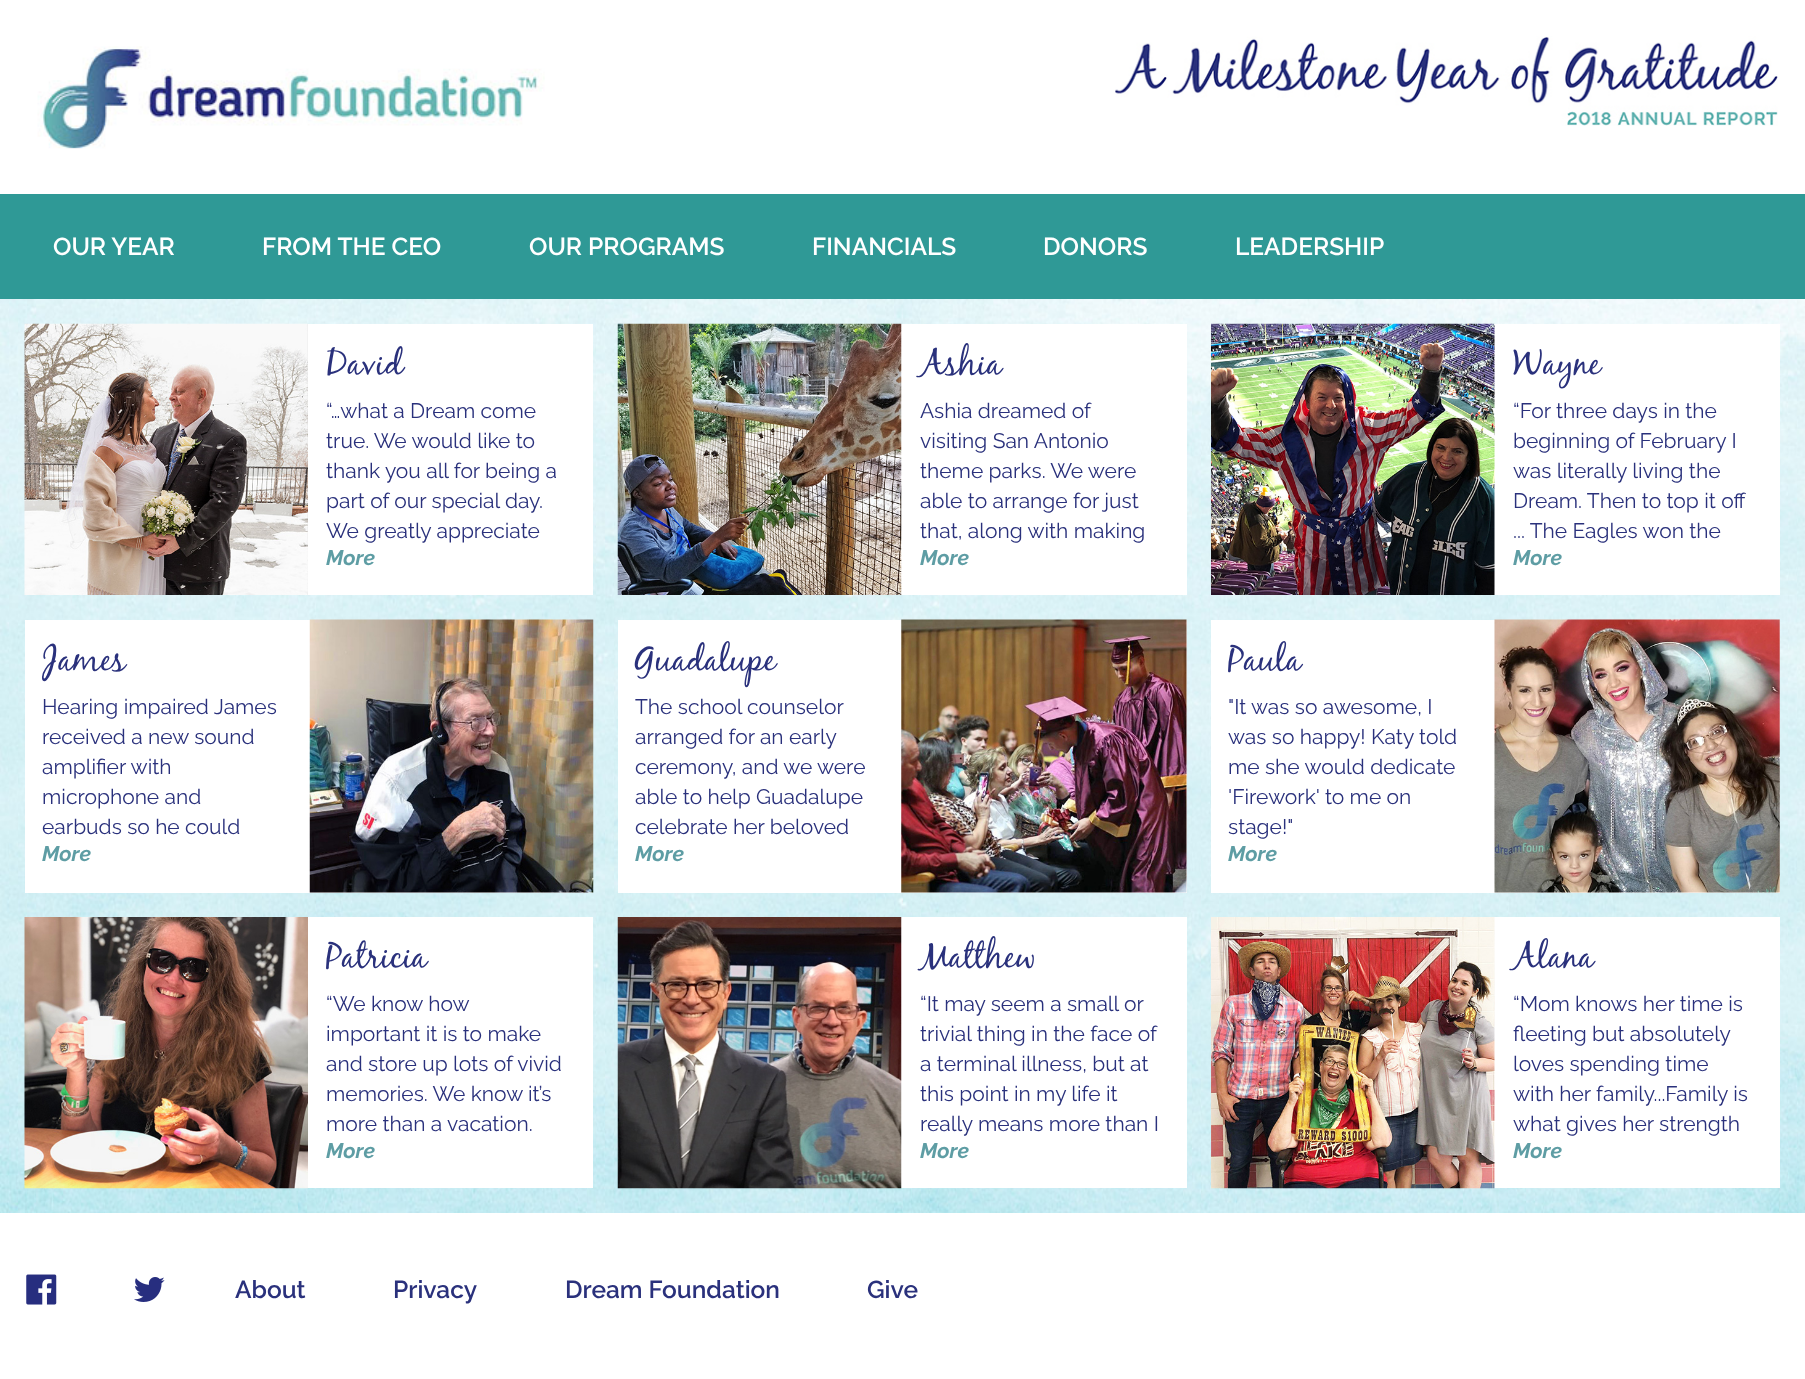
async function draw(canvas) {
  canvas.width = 1805;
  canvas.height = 1379;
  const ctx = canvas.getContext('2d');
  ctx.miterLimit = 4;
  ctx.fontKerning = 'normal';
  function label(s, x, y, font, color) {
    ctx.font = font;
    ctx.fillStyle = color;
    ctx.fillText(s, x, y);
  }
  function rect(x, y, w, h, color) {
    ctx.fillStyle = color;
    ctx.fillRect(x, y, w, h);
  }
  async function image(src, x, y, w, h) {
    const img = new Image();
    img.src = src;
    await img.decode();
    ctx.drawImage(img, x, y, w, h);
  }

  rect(0, 0, 1805, 1379, '#fff');
  await image('assets/img1.png', 37, 46, 508, 103);
  await image('assets/img2.png', 1115, 36, 663, 90);
  rect(0, 194, 1805, 105, '#2f9996');
  label('OUR YEAR', 53, 255, '600 24.5px Raleway', '#fff');
  label('FROM THE CEO', 262, 255, '600 24.5px Raleway', '#fff');
  label('OUR PROGRAMS', 529, 255, '600 24.5px Raleway', '#fff');
  label('FINANCIALS', 812, 255, '600 24.5px Raleway', '#fff');
  label('DONORS', 1043, 255, '600 24.5px Raleway', '#fff');
  label('LEADERSHIP', 1235, 255, '600 24.5px Raleway', '#fff');
  await image('assets/img3.png', 0, 299, 1805, 914);
  rect(308, 324, 285, 271, '#fff');
  await image('assets/img4.png', 24, 323, 284, 272);
  label('David', 326, 374, '900 35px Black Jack', '#2a317c');
  label('“…what a Dream come', 326, 418, '21px Raleway', '#2a317c');
  label('true. We would like to', 326, 448, '21px Raleway', '#2a317c');
  label('thank you all for being a', 326, 478, '21px Raleway', '#2a317c');
  label('part of our special day.', 326, 508, '21px Raleway', '#2a317c');
  label('We greatly appreciate', 326, 538, '21px Raleway', '#2a317c');
  label('More', 326, 565, 'italic bold 21px Raleway', '#5e9da4');
  rect(901, 324, 286, 271, '#fff');
  await image('assets/img5.png', 617, 323, 285, 272);
  label('Ashia', 920, 374, '900 35px Black Jack', '#2a317c');
  label('Ashia dreamed of', 920, 418, '21px Raleway', '#2a317c');
  label('visiting San Antonio', 920, 448, '21px Raleway', '#2a317c');
  label('theme parks. We were', 920, 478, '21px Raleway', '#2a317c');
  label('able to arrange for just', 920, 508, '21px Raleway', '#2a317c');
  label('that, along with making', 920, 538, '21px Raleway', '#2a317c');
  label('More', 920, 565, 'italic bold 21px Raleway', '#5e9da4');
  rect(1494, 324, 286, 271, '#fff');
  await image('assets/img6.png', 1211, 323, 284, 272);
  label('Wayne', 1513, 374, '900 35px Black Jack', '#2a317c');
  label('“For three days in the', 1513, 418, '21px Raleway', '#2a317c');
  label('beginning of February I', 1513, 448, '21px Raleway', '#2a317c');
  label('was literally living the', 1513, 478, '21px Raleway', '#2a317c');
  label('Dream. Then to top it off', 1513, 508, '21px Raleway', '#2a317c');
  label('... The Eagles won the', 1513, 538, '21px Raleway', '#2a317c');
  label('More', 1513, 565, 'italic bold 21px Raleway', '#5e9da4');
  rect(25, 620, 568, 273, '#fff');
  label('James', 42, 670, '900 35px Black Jack', '#2a317c');
  label('Hearing impaired James', 42, 714, '21px Raleway', '#2a317c');
  label('received a new sound', 42, 744, '21px Raleway', '#2a317c');
  label('amplifier with', 42, 774, '21px Raleway', '#2a317c');
  label('microphone and', 42, 804, '21px Raleway', '#2a317c');
  label('earbuds so he could', 42, 834, '21px Raleway', '#2a317c');
  label('More', 42, 861, 'italic bold 21px Raleway', '#5e9da4');
  await image('assets/img7.png', 309, 619, 285, 274);
  rect(618, 620, 569, 273, '#fff');
  label('Guadalupe', 635, 670, '900 35px Black Jack', '#2a317c');
  label('The school counselor', 635, 714, '21px Raleway', '#2a317c');
  label('arranged for an early', 635, 744, '21px Raleway', '#2a317c');
  label('ceremony, and we were', 635, 774, '21px Raleway', '#2a317c');
  label('able to help Guadalupe', 635, 804, '21px Raleway', '#2a317c');
  label('celebrate her beloved', 635, 834, '21px Raleway', '#2a317c');
  label('More', 635, 861, 'italic bold 21px Raleway', '#5e9da4');
  await image('assets/img8.png', 901, 619, 286, 274);
  rect(1211, 620, 569, 273, '#fff');
  label('Paula', 1228, 670, '900 35px Black Jack', '#2a317c');
  label('"It was so awesome, I', 1228, 714, '21px Raleway', '#2a317c');
  label('was so happy! Katy told', 1228, 744, '21px Raleway', '#2a317c');
  label('me she would dedicate', 1228, 774, '21px Raleway', '#2a317c');
  label('\'Firework\' to me on', 1228, 804, '21px Raleway', '#2a317c');
  label('stage!"', 1228, 834, '21px Raleway', '#2a317c');
  label('More', 1228, 861, 'italic bold 21px Raleway', '#5e9da4');
  await image('assets/img9.png', 1494, 619, 286, 274);
  rect(308, 917, 285, 271, '#fff');
  await image('assets/img10.png', 24, 917, 284, 272);
  label('Patricia', 326, 967, '900 35px Black Jack', '#2a317c');
  label('“We know how', 326, 1011, '21px Raleway', '#2a317c');
  label('important it is to make', 326, 1041, '21px Raleway', '#2a317c');
  label('and store up lots of vivid', 326, 1071, '21px Raleway', '#2a317c');
  label('memories. We know it’s', 326, 1101, '21px Raleway', '#2a317c');
  label('more than a vacation.', 326, 1131, '21px Raleway', '#2a317c');
  label('More', 326, 1158, 'italic bold 21px Raleway', '#5e9da4');
  rect(901, 917, 286, 271, '#fff');
  await image('assets/img11.png', 617, 917, 285, 272);
  label('Matthew', 920, 967, '900 35px Black Jack', '#2a317c');
  label('“It may seem a small or', 920, 1011, '21px Raleway', '#2a317c');
  label('trivial thing in the face of', 920, 1041, '21px Raleway', '#2a317c');
  label('a terminal illness, but at', 920, 1071, '21px Raleway', '#2a317c');
  label('this point in my life it', 920, 1101, '21px Raleway', '#2a317c');
  label('really means more than I', 920, 1131, '21px Raleway', '#2a317c');
  label('More', 920, 1158, 'italic bold 21px Raleway', '#5e9da4');
  rect(1494, 917, 286, 271, '#fff');
  await image('assets/img12.png', 1211, 917, 284, 272);
  label('Alana', 1513, 967, '900 35px Black Jack', '#2a317c');
  label('“Mom knows her time is', 1513, 1011, '21px Raleway', '#2a317c');
  label('fleeting but absolutely', 1513, 1041, '21px Raleway', '#2a317c');
  label('loves spending time', 1513, 1071, '21px Raleway', '#2a317c');
  label('with her family...Family is', 1513, 1101, '21px Raleway', '#2a317c');
  label('what gives her strength', 1513, 1131, '21px Raleway', '#2a317c');
  label('More', 1513, 1158, 'italic bold 21px Raleway', '#5e9da4');
  await image('assets/img13.png', 26, 1274, 31, 31);
  await image('assets/img14.png', 134, 1277, 31, 25);
  label('About', 235, 1298, '600 24.5px Raleway', '#2a317c');
  label('Privacy', 393, 1298, '600 24.5px Raleway', '#2a317c');
  label('Dream Foundation', 565, 1298, '600 24.5px Raleway', '#2a317c');
  label('Give', 867, 1298, '600 24.5px Raleway', '#2a317c');
}

draw(document.querySelector('canvas'));
